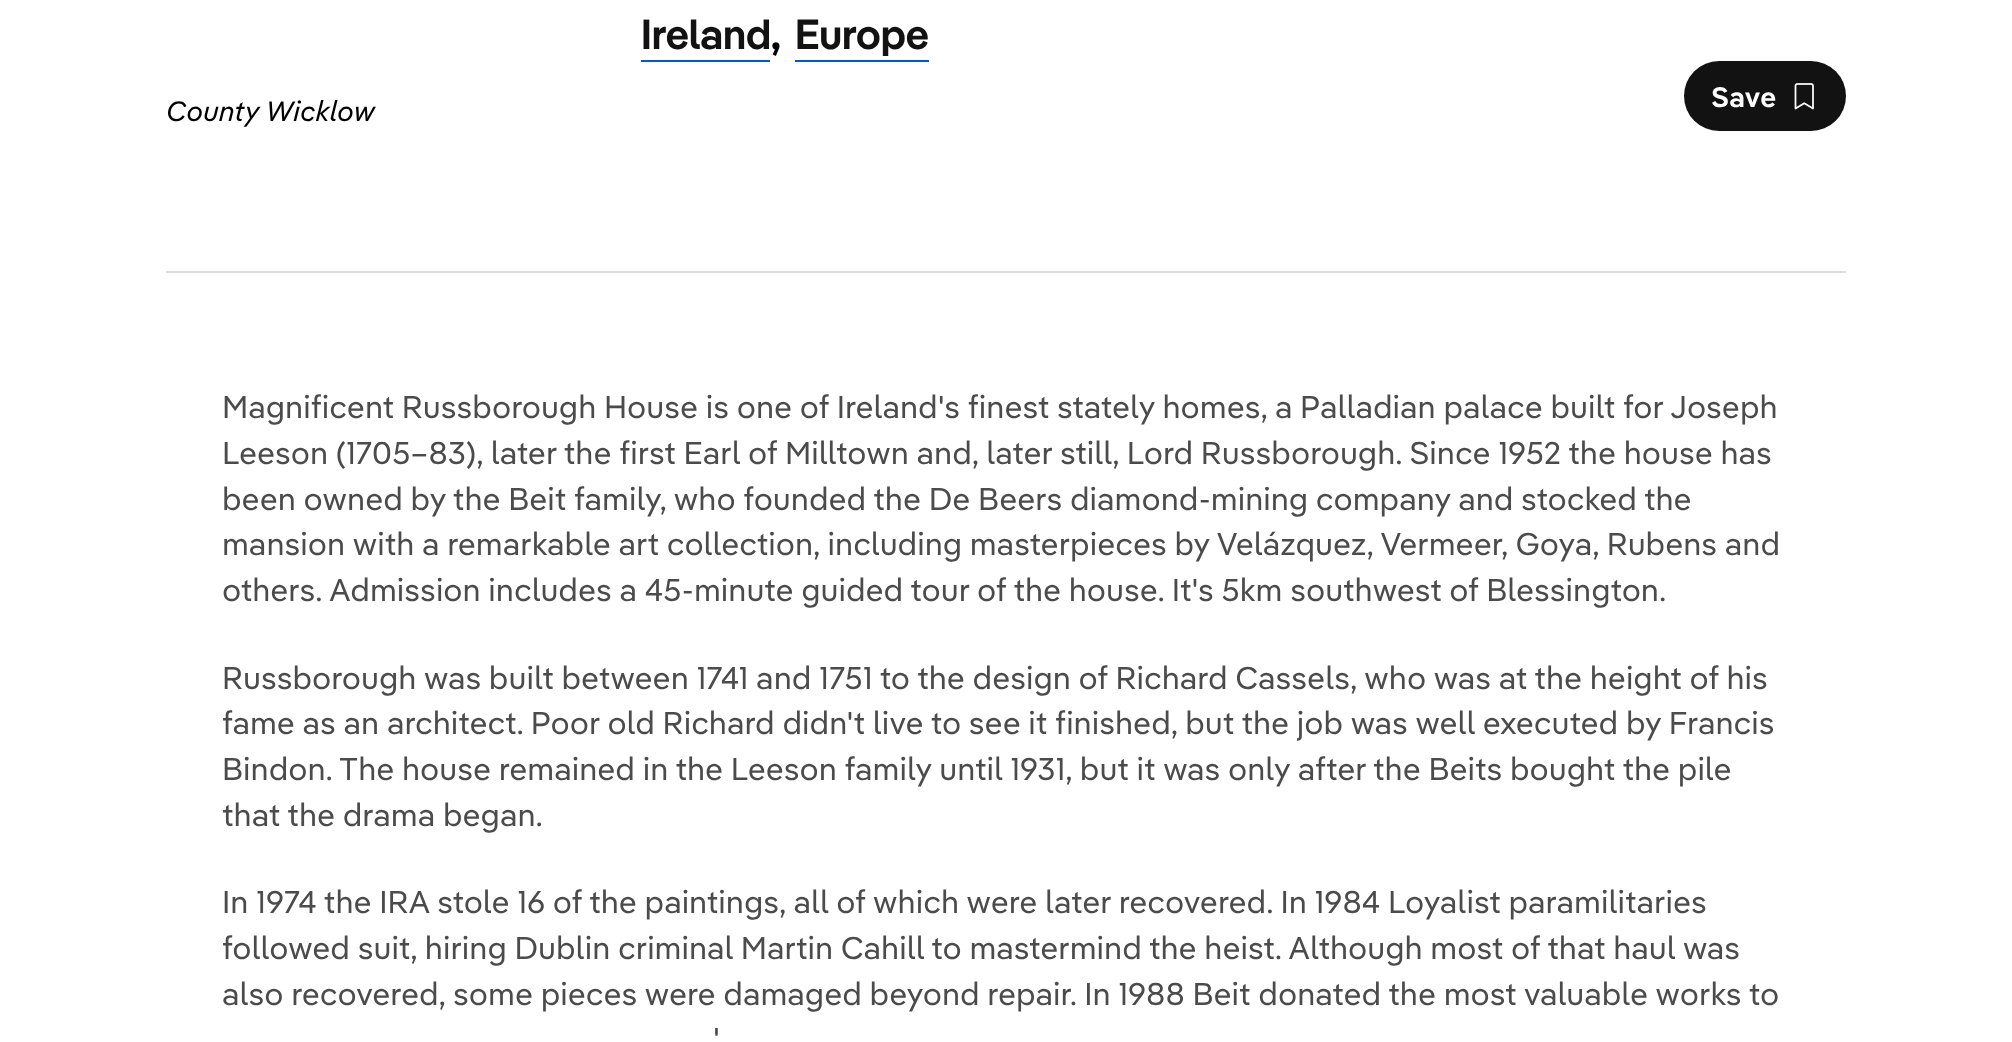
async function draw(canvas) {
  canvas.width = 2012;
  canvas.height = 1042;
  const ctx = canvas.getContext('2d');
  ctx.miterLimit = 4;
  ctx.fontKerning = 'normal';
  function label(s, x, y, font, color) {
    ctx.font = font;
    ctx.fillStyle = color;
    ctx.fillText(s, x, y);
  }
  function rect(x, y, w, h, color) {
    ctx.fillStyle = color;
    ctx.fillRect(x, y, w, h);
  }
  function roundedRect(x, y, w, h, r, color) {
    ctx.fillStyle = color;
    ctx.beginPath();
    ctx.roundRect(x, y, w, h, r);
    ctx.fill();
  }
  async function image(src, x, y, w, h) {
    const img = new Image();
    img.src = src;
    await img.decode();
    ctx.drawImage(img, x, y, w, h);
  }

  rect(0, 0, 2012, 1042, '#fff');
  label('Ireland', 641, 49, '600 42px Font', '#121212');
  rect(641, 60, 129, 2, '#0057d9');
  label(',', 771, 49, '600 42px Font', '#000');
  label('Europe', 795, 49, '600 42px Font', '#121212');
  rect(795, 60, 134, 2, '#0057d9');
  label('County Wicklow', 166, 121, 'italic 28px Font', '#000');
  roundedRect(1684, 61, 162, 70, 35, '#121212');
  label('Save', 1711, 107, '600 28px "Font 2"', '#fff');
  await image('assets/img1.png', 1794, 83, 20, 27);
  rect(166, 271, 1680, 2, '#dbdbdb');
  label('Magnificent Russborough House is one of Ireland\'s finest stately homes, a Palladian palace built for Joseph', 222, 418, '31.5px Font', '#4b4b4b');
  label('Leeson (1705–83), later the first Earl of Milltown and, later still, Lord Russborough. Since 1952 the house has', 222, 464, '31.5px Font', '#4b4b4b');
  label('been owned by the Beit family, who founded the De Beers diamond-mining company and stocked the', 222, 510, '31.5px Font', '#4b4b4b');
  label('mansion with a remarkable art collection, including masterpieces by Velázquez, Vermeer, Goya, Rubens and', 222, 555, '31.5px Font', '#4b4b4b');
  label('others. Admission includes a 45-minute guided tour of the house. It\'s 5km southwest of Blessington.', 222, 601, '31.5px Font', '#4b4b4b');
  label('Russborough was built between 1741 and 1751 to the design of Richard Cassels, who was at the height of his', 222, 689, '31.5px Font', '#4b4b4b');
  label('fame as an architect. Poor old Richard didn\'t live to see it finished, but the job was well executed by Francis', 222, 734, '31.5px Font', '#4b4b4b');
  label('Bindon. The house remained in the Leeson family until 1931, but it was only after the Beits bought the pile', 222, 780, '31.5px Font', '#4b4b4b');
  label('that the drama began.', 222, 826, '31.5px Font', '#4b4b4b');
  label('In 1974 the IRA stole 16 of the paintings, all of which were later recovered. In 1984 Loyalist paramilitaries', 222, 913, '31.5px Font', '#4b4b4b');
  label('followed suit, hiring Dublin criminal Martin Cahill to mastermind the heist. Although most of that haul was', 222, 959, '31.5px Font', '#4b4b4b');
  label('also recovered, some pieces were damaged beyond repair. In 1988 Beit donated the most valuable works to', 222, 1005, '31.5px Font', '#4b4b4b');
  label('\'', 713, 1050, '31.5px Font', '#4b4b4b');
}

draw(document.querySelector('canvas'));
